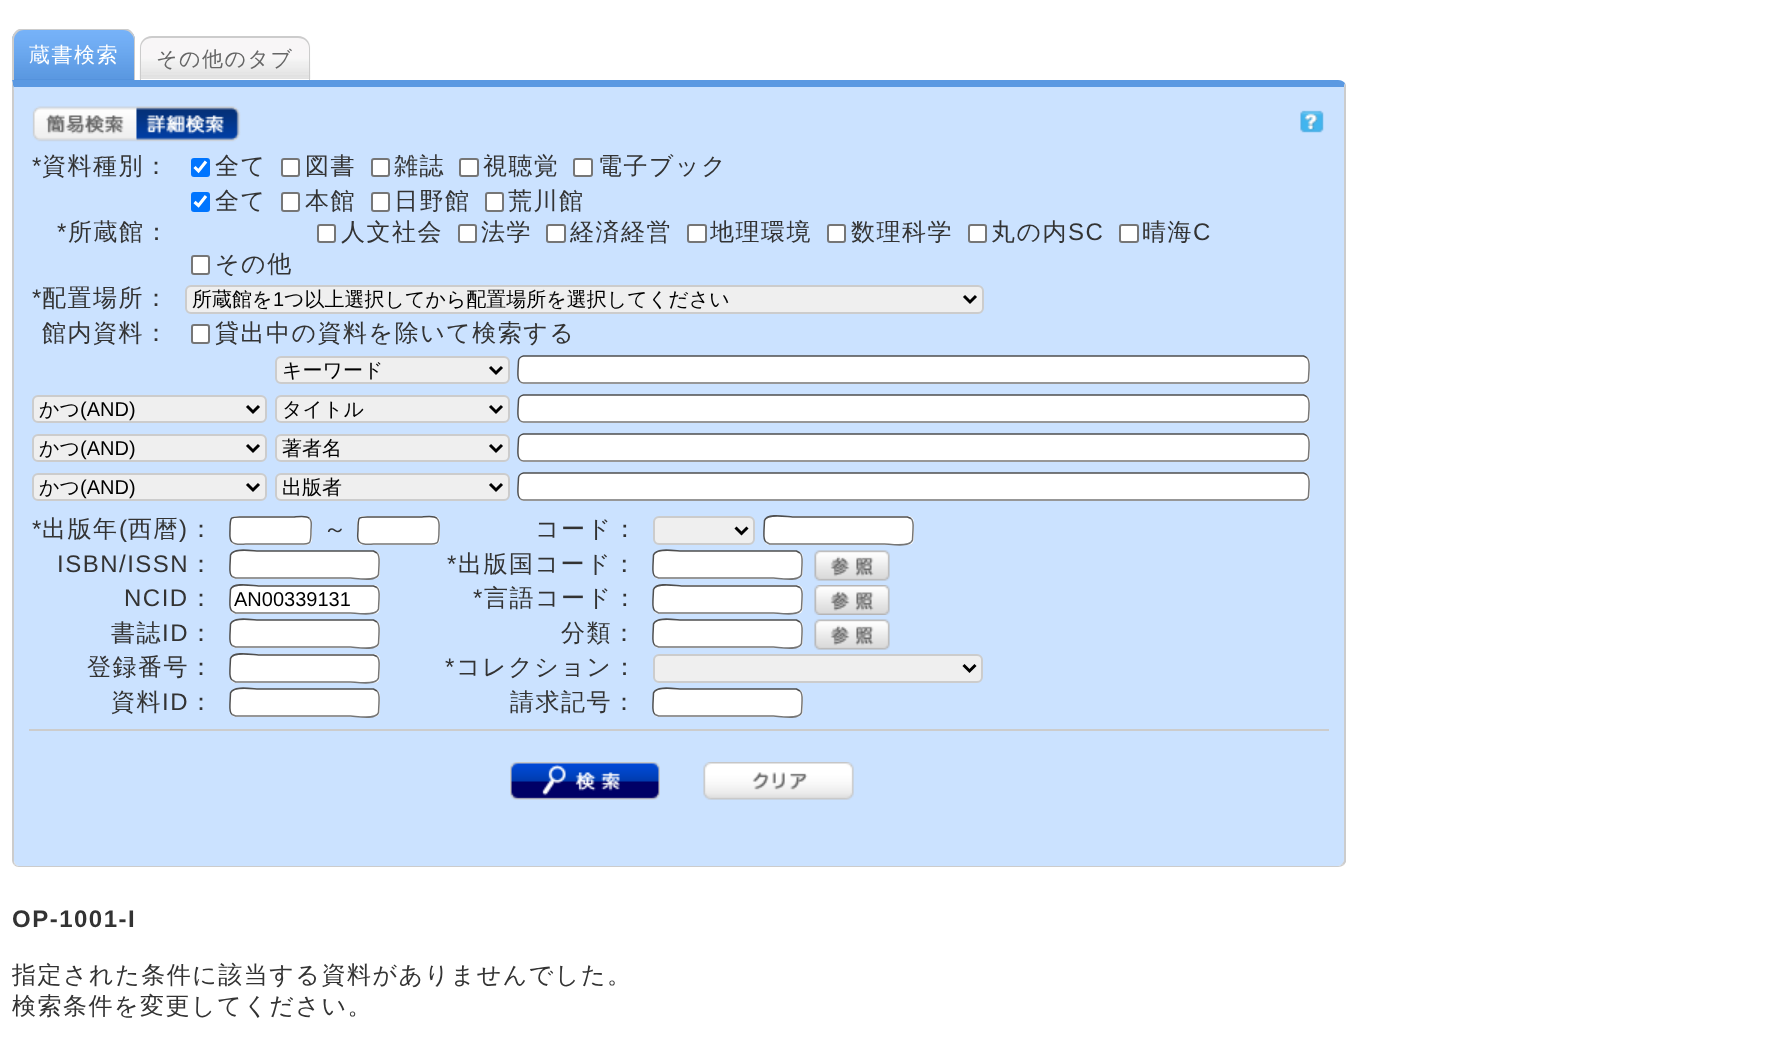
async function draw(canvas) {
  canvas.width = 1777;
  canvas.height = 1046;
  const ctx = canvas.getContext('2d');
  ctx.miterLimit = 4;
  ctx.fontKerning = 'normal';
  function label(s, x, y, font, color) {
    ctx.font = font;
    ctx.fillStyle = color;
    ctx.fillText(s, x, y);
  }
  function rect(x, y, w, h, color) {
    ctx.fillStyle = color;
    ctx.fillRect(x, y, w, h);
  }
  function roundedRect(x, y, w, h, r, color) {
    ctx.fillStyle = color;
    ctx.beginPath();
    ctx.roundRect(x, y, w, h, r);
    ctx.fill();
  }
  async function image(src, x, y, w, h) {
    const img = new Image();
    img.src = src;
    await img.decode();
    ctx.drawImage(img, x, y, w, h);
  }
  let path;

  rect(0, 0, 1777, 1046, '#fff');
  ctx.fillStyle = '#5492dc';
  ctx.beginPath();
  ctx.roundRect(12, 29, 123, 51, [12, 12, 0, 0]);
  ctx.fill();
  await image('assets/img1.png', 12, 30, 123, 49);
  ctx.fillStyle = '#ccc';
  path = new Path2D('M24 30H123C129 30 134 35 134 40V80H135V40C135 35 132 31 128 29H19C15 31 12 35 12 40V80H14V40C14 35 18 30 24 30Z');
  ctx.fill(path);
  ctx.letterSpacing = '1.5px';
  label('蔵書検索', 29, 62, '500 21px WenQuanYi Zen Hei', '#fff');
  await image('assets/img2.png', 139, 36, 172, 43);
  ctx.fillStyle = '#ccc';
  path = new Path2D('M152 36H298C305 36 310 41 310 48V80H140V48C140 41 145 36 152 36ZM152 38H298C304 38 309 42 309 48V80H141V48C141 42 146 38 152 38Z');
  ctx.fill(path, 'evenodd');
  label('その他のタブ', 156, 66, '500 21px WenQuanYi Zen Hei', '#666');
  ctx.fillStyle = '#cbe2ff';
  path = new Path2D('M14 87H1344V860C1344 863 1341 866 1338 866H19C16 866 14 863 14 860Z');
  ctx.fill(path);
  ctx.fillStyle = '#5b99e2';
  path = new Path2D('M14 87H1344L1345 83C1343 81 1341 80 1338 80H12L14 90Z');
  ctx.fill(path);
  ctx.fillStyle = '#ccc';
  path = new Path2D('M1346 862L1344 865L1342 864C1343 863 1344 861 1344 860V87L1345 83L1346 85Z');
  ctx.fill(path);
  path = new Path2D('M19 867H1338C1340 867 1342 866 1344 865L1342 864C1341 865 1340 866 1338 866H19C17 866 16 865 15 864L14 865C15 866 17 867 19 867Z');
  ctx.fill(path);
  path = new Path2D('M12 80L14 90V860C14 861 14 863 15 864L14 865C13 864 12 862 12 860Z');
  ctx.fill(path);
  await image('assets/img3.png', 32, 106, 105, 36);
  await image('assets/img4.png', 136, 106, 105, 36);
  await image('assets/img5.png', 1300, 110, 24, 23);
  label('*', 32, 174, '24px Liberation Sans', '#333');
  label('資料種別：', 42, 174, '500 24px WenQuanYi Zen Hei', '#333');
  roundedRect(191, 158, 19, 19, 3, '#0075ff');
  path = new Path2D('M194.5 167L198.5 171L206 161.5');
  ctx.strokeStyle = '#fff';
  ctx.lineWidth = 3.1;
  ctx.stroke(path);
  label('全て', 215, 174, '500 24px WenQuanYi Zen Hei', '#333');
  ctx.fillStyle = '#fff';
  ctx.beginPath();
  ctx.roundRect(282, 159, 17, 17, 2);
  ctx.fill();
  ctx.strokeStyle = '#767676';
  ctx.lineWidth = 2;
  ctx.stroke();
  label('図書', 305, 174, '500 24px WenQuanYi Zen Hei', '#333');
  ctx.fillStyle = '#fff';
  ctx.beginPath();
  ctx.roundRect(372, 159, 17, 17, 2);
  ctx.fill();
  ctx.stroke();
  label('雑誌', 394, 174, '500 24px WenQuanYi Zen Hei', '#333');
  ctx.fillStyle = '#fff';
  ctx.beginPath();
  ctx.roundRect(460, 159, 18, 17, 2);
  ctx.fill();
  ctx.stroke();
  label('視聴覚', 483, 174, '500 24px WenQuanYi Zen Hei', '#333');
  ctx.fillStyle = '#fff';
  ctx.beginPath();
  ctx.roundRect(574, 159, 18, 17, 2);
  ctx.fill();
  ctx.stroke();
  label('電子ブック', 598, 174, '500 24px WenQuanYi Zen Hei', '#333');
  label('*', 57, 240, '24px Liberation Sans', '#333');
  label('所蔵館：', 68, 240, '500 24px WenQuanYi Zen Hei', '#333');
  roundedRect(191, 192, 19, 20, 3, '#0075ff');
  path = new Path2D('M194.5 202L198.5 205.5L206 196');
  ctx.strokeStyle = '#fff';
  ctx.lineWidth = 3.1;
  ctx.stroke(path);
  label('全て', 215, 209, '500 24px WenQuanYi Zen Hei', '#333');
  ctx.fillStyle = '#fff';
  ctx.beginPath();
  ctx.roundRect(282, 193, 17, 18, 2);
  ctx.fill();
  ctx.strokeStyle = '#767676';
  ctx.lineWidth = 2;
  ctx.stroke();
  label('本館', 305, 209, '500 24px WenQuanYi Zen Hei', '#333');
  ctx.fillStyle = '#fff';
  ctx.beginPath();
  ctx.roundRect(372, 193, 17, 18, 2);
  ctx.fill();
  ctx.stroke();
  label('日野館', 394, 209, '500 24px WenQuanYi Zen Hei', '#333');
  ctx.fillStyle = '#fff';
  ctx.beginPath();
  ctx.roundRect(486, 193, 17, 18, 2);
  ctx.fill();
  ctx.stroke();
  label('荒川館', 508, 209, '500 24px WenQuanYi Zen Hei', '#333');
  ctx.fillStyle = '#fff';
  ctx.beginPath();
  ctx.roundRect(318, 225, 17, 17, 2);
  ctx.fill();
  ctx.stroke();
  label('人文社会', 341, 240, '500 24px WenQuanYi Zen Hei', '#333');
  ctx.fillStyle = '#fff';
  ctx.beginPath();
  ctx.roundRect(459, 225, 17, 17, 2);
  ctx.fill();
  ctx.stroke();
  label('法学', 481, 240, '500 24px WenQuanYi Zen Hei', '#333');
  ctx.fillStyle = '#fff';
  ctx.beginPath();
  ctx.roundRect(547, 225, 18, 17, 2);
  ctx.fill();
  ctx.stroke();
  label('経済経営', 570, 240, '500 24px WenQuanYi Zen Hei', '#333');
  ctx.fillStyle = '#fff';
  ctx.beginPath();
  ctx.roundRect(688, 225, 18, 17, 2);
  ctx.fill();
  ctx.stroke();
  label('地理環境', 710, 240, '500 24px WenQuanYi Zen Hei', '#333');
  ctx.fillStyle = '#fff';
  ctx.beginPath();
  ctx.roundRect(828, 225, 17, 17, 2);
  ctx.fill();
  ctx.stroke();
  label('数理科学', 851, 240, '500 24px WenQuanYi Zen Hei', '#333');
  ctx.fillStyle = '#fff';
  ctx.beginPath();
  ctx.roundRect(969, 225, 17, 17, 2);
  ctx.fill();
  ctx.stroke();
  label('丸の内', 991, 240, '500 24px WenQuanYi Zen Hei', '#333');
  label('SC', 1068, 240, '24px Liberation Sans', '#333');
  ctx.fillStyle = '#fff';
  ctx.beginPath();
  ctx.roundRect(1120, 225, 18, 17, 2);
  ctx.fill();
  ctx.stroke();
  label('晴海', 1142, 240, '500 24px WenQuanYi Zen Hei', '#333');
  label('C', 1193, 240, '24px Liberation Sans', '#333');
  ctx.fillStyle = '#fff';
  ctx.beginPath();
  ctx.roundRect(192, 256, 17, 18, 2);
  ctx.fill();
  ctx.stroke();
  label('その他', 215, 272, '500 24px WenQuanYi Zen Hei', '#333');
  label('*', 32, 306, '24px Liberation Sans', '#333');
  label('配置場所：', 42, 306, '500 24px WenQuanYi Zen Hei', '#333');
  ctx.fillStyle = '#efefef';
  ctx.beginPath();
  ctx.roundRect(186, 286, 797, 27, 5);
  ctx.fill();
  ctx.strokeStyle = '#ccc';
  ctx.stroke();
  path = new Path2D('M964 296L970 302L976 296');
  ctx.strokeStyle = '#000';
  ctx.lineWidth = 3;
  ctx.stroke(path);
  ctx.letterSpacing = '0px';
  label('所蔵館を', 192, 306, '500 20px WenQuanYi Zen Hei', '#000');
  label('1', 273, 306, '20px Liberation Sans', '#000');
  label('つ以上選択してから配置場所を選択してください', 284, 306, '500 20px WenQuanYi Zen Hei', '#000');
  ctx.letterSpacing = '1.5px';
  label('館内資料：', 42, 341, '500 24px WenQuanYi Zen Hei', '#333');
  ctx.fillStyle = '#fff';
  ctx.beginPath();
  ctx.roundRect(192, 325, 17, 18, 2);
  ctx.fill();
  ctx.strokeStyle = '#767676';
  ctx.lineWidth = 2;
  ctx.stroke();
  label('貸出中の資料を除いて検索する', 215, 341, '500 24px WenQuanYi Zen Hei', '#333');
  ctx.fillStyle = '#efefef';
  ctx.beginPath();
  ctx.roundRect(276, 357, 233, 26, 5);
  ctx.fill();
  ctx.strokeStyle = '#ccc';
  ctx.stroke();
  path = new Path2D('M490 367L496 373L502 367');
  ctx.strokeStyle = '#000';
  ctx.lineWidth = 3;
  ctx.stroke(path);
  ctx.letterSpacing = '0px';
  label('キーワード', 282, 377, '500 20px WenQuanYi Zen Hei', '#000');
  roundedRect(518, 356, 792, 28, 6, '#fff');
  path = new Path2D('M1307 358C1310 360.5 1309 366.5 1309 370L1308.5 378.5C1308.5 381 1306 383 1303.5 383H523.5C522 383 521 382.5 520 381.5');
  ctx.strokeStyle = '#767676';
  ctx.lineWidth = 1.5;
  ctx.stroke(path);
  path = new Path2D('M520 381.5C517 379 518 373 518 370L518.5 361C518.5 358.5 521 356.5 523.5 356H1303.5C1305 356.5 1306 357 1307 358');
  ctx.strokeStyle = '#4f4f4f';
  ctx.stroke(path);
  ctx.fillStyle = '#efefef';
  ctx.beginPath();
  ctx.roundRect(33, 396, 233, 26, 5);
  ctx.fill();
  ctx.strokeStyle = '#ccc';
  ctx.lineWidth = 2;
  ctx.stroke();
  path = new Path2D('M247 406L253 412L259 406');
  ctx.strokeStyle = '#000';
  ctx.lineWidth = 3;
  ctx.stroke(path);
  label('かつ', 39, 416, '500 20px WenQuanYi Zen Hei', '#000');
  label('(AND)', 80, 416, '20px Liberation Sans', '#000');
  ctx.fillStyle = '#efefef';
  ctx.beginPath();
  ctx.roundRect(276, 396, 233, 26, 5);
  ctx.fill();
  ctx.strokeStyle = '#ccc';
  ctx.lineWidth = 2;
  ctx.stroke();
  path = new Path2D('M490 406L496 412L502 406');
  ctx.strokeStyle = '#000';
  ctx.lineWidth = 3;
  ctx.stroke(path);
  label('タイトル', 282, 416, '500 20px WenQuanYi Zen Hei', '#000');
  roundedRect(518, 395, 792, 28, 6, '#fff');
  path = new Path2D('M1307 397C1310 399.5 1309 405.5 1309 409L1308.5 417.5C1308.5 420 1306 422 1303.5 422H523.5C522 422 521 421.5 520 420.5');
  ctx.strokeStyle = '#767676';
  ctx.lineWidth = 1.5;
  ctx.stroke(path);
  path = new Path2D('M520 420.5C517 418 518 412 518 409L518.5 400C518.5 397.5 521 395.5 523.5 395H1303.5C1305 395.5 1306 396 1307 397');
  ctx.strokeStyle = '#4f4f4f';
  ctx.stroke(path);
  ctx.fillStyle = '#efefef';
  ctx.beginPath();
  ctx.roundRect(33, 435, 233, 26, 5);
  ctx.fill();
  ctx.strokeStyle = '#ccc';
  ctx.lineWidth = 2;
  ctx.stroke();
  path = new Path2D('M247 445L253 451L259 445');
  ctx.strokeStyle = '#000';
  ctx.lineWidth = 3;
  ctx.stroke(path);
  label('かつ', 39, 455, '500 20px WenQuanYi Zen Hei', '#000');
  label('(AND)', 80, 455, '20px Liberation Sans', '#000');
  ctx.fillStyle = '#efefef';
  ctx.beginPath();
  ctx.roundRect(276, 435, 233, 26, 5);
  ctx.fill();
  ctx.strokeStyle = '#ccc';
  ctx.lineWidth = 2;
  ctx.stroke();
  path = new Path2D('M490 445L496 451L502 445');
  ctx.strokeStyle = '#000';
  ctx.lineWidth = 3;
  ctx.stroke(path);
  label('著者名', 282, 455, '500 20px WenQuanYi Zen Hei', '#000');
  roundedRect(518, 434, 792, 28, 6, '#fff');
  path = new Path2D('M1307 436C1310 438.5 1309 444.5 1309 448L1308.5 456.5C1308.5 459 1306 461 1303.5 461H523.5C522 461 521 460.5 520 459.5');
  ctx.strokeStyle = '#767676';
  ctx.lineWidth = 1.5;
  ctx.stroke(path);
  path = new Path2D('M520 459.5C517 457 518 451 518 448L518.5 439C518.5 436.5 521 434.5 523.5 434H1303.5C1305 434.5 1306 435 1307 436');
  ctx.strokeStyle = '#4f4f4f';
  ctx.stroke(path);
  ctx.fillStyle = '#efefef';
  ctx.beginPath();
  ctx.roundRect(33, 474, 233, 26, 5);
  ctx.fill();
  ctx.strokeStyle = '#ccc';
  ctx.lineWidth = 2;
  ctx.stroke();
  path = new Path2D('M247 484L253 490L259 484');
  ctx.strokeStyle = '#000';
  ctx.lineWidth = 3;
  ctx.stroke(path);
  label('かつ', 39, 494, '500 20px WenQuanYi Zen Hei', '#000');
  label('(AND)', 80, 494, '20px Liberation Sans', '#000');
  ctx.fillStyle = '#efefef';
  ctx.beginPath();
  ctx.roundRect(276, 474, 233, 26, 5);
  ctx.fill();
  ctx.strokeStyle = '#ccc';
  ctx.lineWidth = 2;
  ctx.stroke();
  path = new Path2D('M490 484L496 490L502 484');
  ctx.strokeStyle = '#000';
  ctx.lineWidth = 3;
  ctx.stroke(path);
  label('出版者', 282, 494, '500 20px WenQuanYi Zen Hei', '#000');
  roundedRect(518, 473, 792, 28, 6, '#fff');
  path = new Path2D('M1307 475C1310 477.5 1309 483.5 1309 487L1308.5 495.5C1308.5 498 1306 500 1303.5 500H523.5C522 500 521 499.5 520 498.5');
  ctx.strokeStyle = '#767676';
  ctx.lineWidth = 1.5;
  ctx.stroke(path);
  path = new Path2D('M520 498.5C517 496 518 490 518 487L518.5 478C518.5 475.5 521 473.5 523.5 473H1303.5C1305 473.5 1306 474 1307 475');
  ctx.strokeStyle = '#4f4f4f';
  ctx.stroke(path);
  ctx.letterSpacing = '1.5px';
  label('*', 32, 537, '24px Liberation Sans', '#333');
  label('出版年', 42, 537, '500 24px WenQuanYi Zen Hei', '#333');
  label('(', 119, 537, '24px Liberation Sans', '#333');
  label('西暦', 128, 537, '500 24px WenQuanYi Zen Hei', '#333');
  label(')', 179, 537, '24px Liberation Sans', '#333');
  label('：', 189, 537, '500 24px WenQuanYi Zen Hei', '#333');
  roundedRect(230, 516, 82, 29, 6, '#fff');
  path = new Path2D('M309.5 518.5C312.5 521 311 527 311 530C311 546 311 544 294 544H247C245.5 544 235 545.5 232 542');
  ctx.strokeStyle = '#767676';
  ctx.stroke(path);
  path = new Path2D('M232 542C229 539.5 230 533.5 230 530C230 514.5 230.5 517 247 517H294C296 517 306.5 515 309.5 518.5');
  ctx.strokeStyle = '#4f4f4f';
  ctx.stroke(path);
  label('～', 323, 537, '500 24px WenQuanYi Zen Hei', '#333');
  roundedRect(357, 516, 83, 29, 6, '#fff');
  path = new Path2D('M437 518.5C440 521 439 527 439 530C439 546 438.5 544 422 544H375C373 544 362.5 545.5 359.5 542');
  ctx.strokeStyle = '#767676';
  ctx.stroke(path);
  path = new Path2D('M359.5 542C356.5 539.5 358 533.5 358 530C358 514.5 358 517 375 517H422C423.5 517 434 515 437 518.5');
  ctx.strokeStyle = '#4f4f4f';
  ctx.stroke(path);
  label('コード：', 535, 537, '500 24px WenQuanYi Zen Hei', '#333');
  ctx.fillStyle = '#efefef';
  ctx.beginPath();
  ctx.roundRect(654, 517, 100, 27, 5);
  ctx.fill();
  ctx.strokeStyle = '#ccc';
  ctx.lineWidth = 2;
  ctx.stroke();
  path = new Path2D('M735.5 527.5L741.5 533.5L747.5 527.5');
  ctx.strokeStyle = '#000';
  ctx.lineWidth = 3;
  ctx.stroke(path);
  roundedRect(764, 516, 150, 29, 6, '#fff');
  path = new Path2D('M911 518.5C914 521 913 527 913 530L912.5 540C910 548 889.5 544 884.5 544H769.5L766 542');
  ctx.strokeStyle = '#767676';
  ctx.lineWidth = 1.5;
  ctx.stroke(path);
  path = new Path2D('M766 542C763 539.5 764 533.5 764 530L764.5 520.5C767 512.5 787.5 517 792.5 517H907.5L911 518.5');
  ctx.strokeStyle = '#4f4f4f';
  ctx.stroke(path);
  label('ISBN/ISSN', 57, 572, '24px Liberation Sans', '#333');
  label('：', 189, 572, '500 24px WenQuanYi Zen Hei', '#333');
  roundedRect(230, 551, 150, 28, 6, '#fff');
  path = new Path2D('M377 553C380 555.5 379 561.5 379 565L378.5 574.5C376 582.5 355.5 578 350.5 578H235.5L232 576.5');
  ctx.strokeStyle = '#767676';
  ctx.stroke(path);
  path = new Path2D('M232 576.5C229 574 230 568 230 565L230.5 555C233 547 253.5 551 258.5 551H373.5L377 553');
  ctx.strokeStyle = '#4f4f4f';
  ctx.stroke(path);
  label('*', 447, 572, '24px Liberation Sans', '#333');
  label('出版国コード：', 458, 572, '500 24px WenQuanYi Zen Hei', '#333');
  roundedRect(653, 551, 150, 28, 6, '#fff');
  path = new Path2D('M800 553C803 555.5 802 561.5 802 565L801.5 574.5C799 582.5 778.5 578 773.5 578H658.5L655 576.5');
  ctx.strokeStyle = '#767676';
  ctx.stroke(path);
  path = new Path2D('M655 576.5C652 574 653 568 653 565L653.5 555C656 547 676.5 551 681.5 551H796.5L800 553');
  ctx.strokeStyle = '#4f4f4f';
  ctx.stroke(path);
  await image('assets/img6.png', 814, 550, 76, 31);
  label('NCID', 124, 606, '24px Liberation Sans', '#333');
  label('：', 189, 606, '500 24px WenQuanYi Zen Hei', '#333');
  roundedRect(230, 585, 150, 29, 6, '#fff');
  path = new Path2D('M377 587.5C380 590 379 596 379 599L378.5 609C376 617 355.5 613 350.5 613H235.5L232 611');
  ctx.strokeStyle = '#767676';
  ctx.stroke(path);
  path = new Path2D('M232 611C229 608.5 230 602.5 230 599L230.5 589.5C233 581.5 253.5 586 258.5 586H373.5L377 587.5');
  ctx.strokeStyle = '#4f4f4f';
  ctx.stroke(path);
  ctx.letterSpacing = '0px';
  label('AN00339131', 234, 606, '20px Liberation Sans', '#000');
  ctx.letterSpacing = '1.5px';
  label('*', 473, 606, '24px Liberation Sans', '#333');
  label('言語コード：', 484, 606, '500 24px WenQuanYi Zen Hei', '#333');
  roundedRect(653, 585, 150, 29, 6, '#fff');
  path = new Path2D('M800 587.5C803 590 802 596 802 599L801.5 609C799 617 778.5 613 773.5 613H658.5L655 611');
  ctx.strokeStyle = '#767676';
  ctx.stroke(path);
  path = new Path2D('M655 611C652 608.5 653 602.5 653 599L653.5 589.5C656 581.5 676.5 586 681.5 586H796.5L800 587.5');
  ctx.strokeStyle = '#4f4f4f';
  ctx.stroke(path);
  await image('assets/img7.png', 814, 585, 76, 30);
  label('書誌', 111, 641, '500 24px WenQuanYi Zen Hei', '#333');
  label('ID', 162, 641, '24px Liberation Sans', '#333');
  label('：', 189, 641, '500 24px WenQuanYi Zen Hei', '#333');
  roundedRect(230, 620, 150, 28, 6, '#fff');
  path = new Path2D('M377 622C380 624.5 379 630.5 379 634L378.5 643.5C376 651.5 355.5 647 350.5 647H235.5L232 645.5');
  ctx.strokeStyle = '#767676';
  ctx.stroke(path);
  path = new Path2D('M232 645.5C229 643 230 637 230 634L230.5 624C233 616 253.5 620 258.5 620H373.5L377 622');
  ctx.strokeStyle = '#4f4f4f';
  ctx.stroke(path);
  label('分類：', 561, 641, '500 24px WenQuanYi Zen Hei', '#333');
  roundedRect(653, 620, 150, 28, 6, '#fff');
  path = new Path2D('M800 622C803 624.5 802 630.5 802 634L801.5 643.5C799 651.5 778.5 647 773.5 647H658.5L655 645.5');
  ctx.strokeStyle = '#767676';
  ctx.stroke(path);
  path = new Path2D('M655 645.5C652 643 653 637 653 634L653.5 624C656 616 676.5 620 681.5 620H796.5L800 622');
  ctx.strokeStyle = '#4f4f4f';
  ctx.stroke(path);
  await image('assets/img6.png', 814, 619, 76, 31);
  label('登録番号：', 87, 675, '500 24px WenQuanYi Zen Hei', '#333');
  roundedRect(230, 654, 150, 29, 6, '#fff');
  path = new Path2D('M377 656.5C380 659 379 665 379 668L378.5 678C376 686 355.5 682 350.5 682H235.5L232 680');
  ctx.strokeStyle = '#767676';
  ctx.stroke(path);
  path = new Path2D('M232 680C229 677.5 230 671.5 230 668L230.5 658.5C233 650.5 253.5 655 258.5 655H373.5L377 656.5');
  ctx.strokeStyle = '#4f4f4f';
  ctx.stroke(path);
  label('*', 445, 675, '24px Liberation Sans', '#333');
  label('コレクション：', 456, 675, '500 24px WenQuanYi Zen Hei', '#333');
  ctx.fillStyle = '#efefef';
  ctx.beginPath();
  ctx.roundRect(654, 655, 328, 27, 5);
  ctx.fill();
  ctx.strokeStyle = '#ccc';
  ctx.lineWidth = 2;
  ctx.stroke();
  path = new Path2D('M963.5 665L969.5 671L975.5 665');
  ctx.strokeStyle = '#000';
  ctx.lineWidth = 3;
  ctx.stroke(path);
  label('資料', 111, 710, '500 24px WenQuanYi Zen Hei', '#333');
  label('ID', 162, 710, '24px Liberation Sans', '#333');
  label('：', 189, 710, '500 24px WenQuanYi Zen Hei', '#333');
  roundedRect(230, 689, 150, 28, 6, '#fff');
  path = new Path2D('M377 691C380 693.5 379 699.5 379 703L378.5 712.5C376 720.5 355.5 716 350.5 716H235.5L232 714.5');
  ctx.strokeStyle = '#767676';
  ctx.lineWidth = 1.5;
  ctx.stroke(path);
  path = new Path2D('M232 714.5C229 712 230 706 230 703L230.5 693C233 685 253.5 689 258.5 689H373.5L377 691');
  ctx.strokeStyle = '#4f4f4f';
  ctx.stroke(path);
  label('請求記号：', 510, 710, '500 24px WenQuanYi Zen Hei', '#333');
  roundedRect(653, 689, 150, 28, 6, '#fff');
  path = new Path2D('M800 691C803 693.5 802 699.5 802 703L801.5 712.5C799 720.5 778.5 716 773.5 716H658.5L655 714.5');
  ctx.strokeStyle = '#767676';
  ctx.stroke(path);
  path = new Path2D('M655 714.5C652 712 653 706 653 703L653.5 693C656 685 676.5 689 681.5 689H796.5L800 691');
  ctx.strokeStyle = '#4f4f4f';
  ctx.stroke(path);
  rect(29, 729, 1300, 2, '#ccc');
  await image('assets/img8.png', 510, 762, 150, 38);
  await image('assets/img9.png', 703, 762, 151, 38);
  label('OP-1001-I', 12, 927, 'bold 24px Liberation Sans', '#333');
  label('指定された条件に該当する資料がありませんでした。', 12, 983, '500 24px WenQuanYi Zen Hei', '#333');
  label('検索条件を変更してください。', 12, 1014, '500 24px WenQuanYi Zen Hei', '#333');
}

draw(document.querySelector('canvas'));
